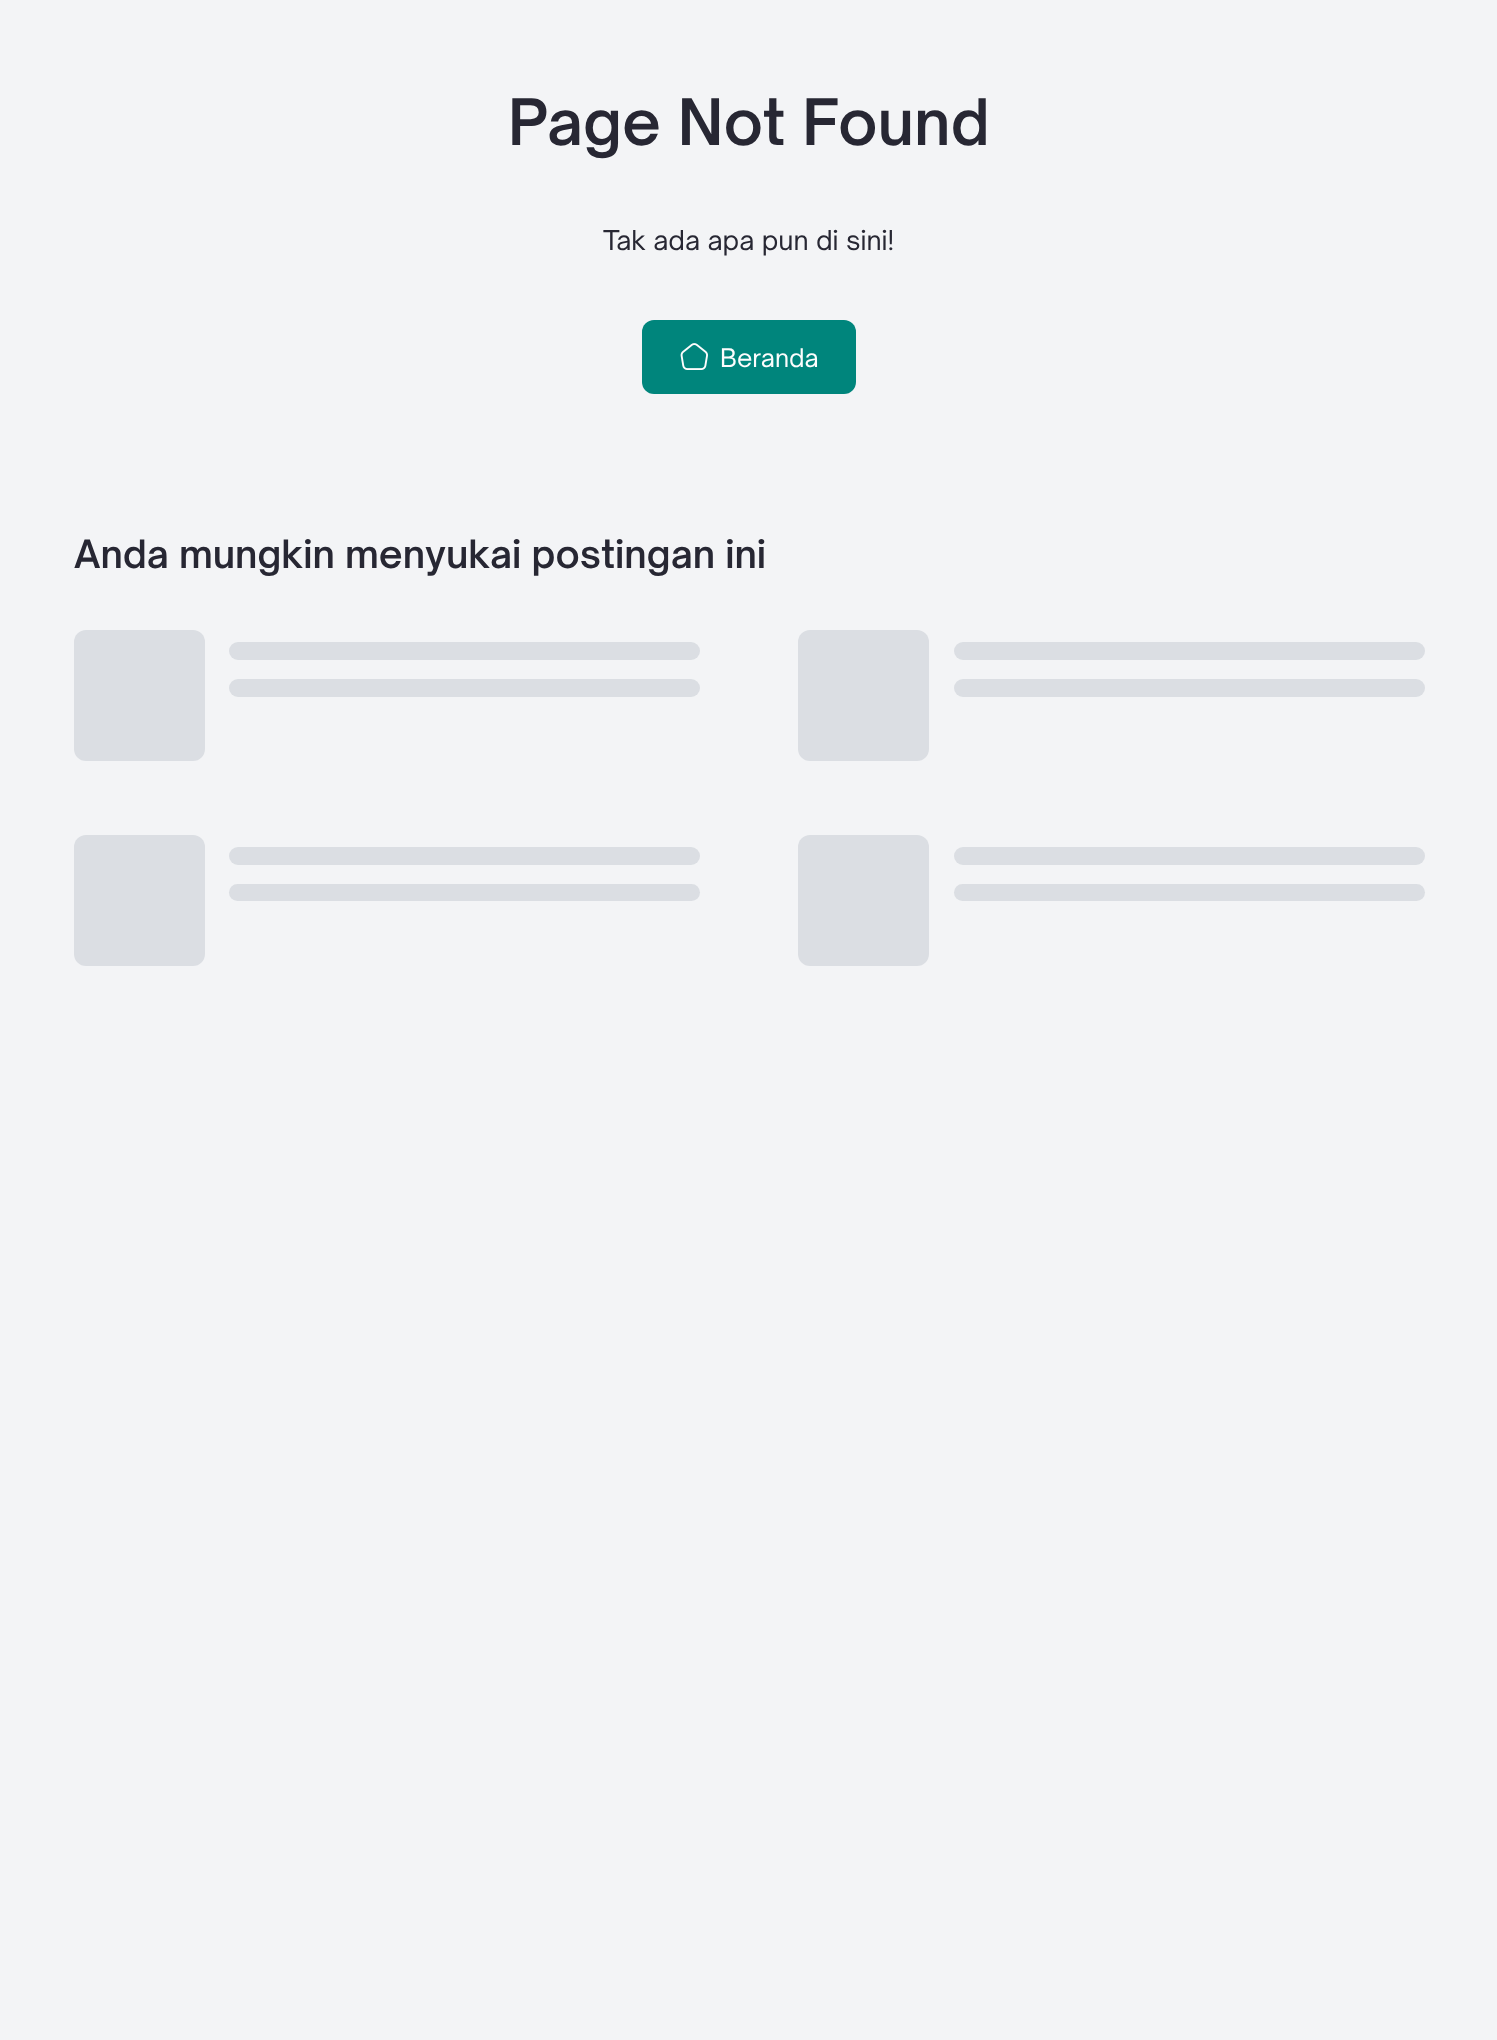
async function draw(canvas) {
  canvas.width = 1497;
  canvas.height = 2040;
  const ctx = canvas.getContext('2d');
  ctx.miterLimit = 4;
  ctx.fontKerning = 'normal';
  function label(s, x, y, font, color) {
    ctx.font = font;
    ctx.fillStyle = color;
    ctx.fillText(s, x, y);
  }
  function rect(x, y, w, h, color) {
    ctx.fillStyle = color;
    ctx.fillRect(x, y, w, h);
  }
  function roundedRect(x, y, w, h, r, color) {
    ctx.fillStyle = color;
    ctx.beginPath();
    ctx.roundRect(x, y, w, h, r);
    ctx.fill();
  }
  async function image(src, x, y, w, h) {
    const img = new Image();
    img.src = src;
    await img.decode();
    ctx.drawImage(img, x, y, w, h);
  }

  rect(0, 0, 1497, 2040, '#f3f4f6');
  label('Page Not Found', 508, 145, '600 61.25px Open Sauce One', '#272733');
  label('Tak ada apa pun di sini!', 603, 250, '26.25px Open Sauce One', '#272733');
  roundedRect(642, 320, 214, 74, 12, '#00857c');
  await image('assets/img1.png', 680, 343, 28, 27);
  label('Beranda', 720, 367, '24.5px Open Sauce One', '#fdfdfd');
  label('Anda mungkin menyukai postingan ini', 74, 568, '600 37.5px Open Sauce One', '#272733');
  roundedRect(74, 630, 131, 131, 12, '#dbdee3');
  roundedRect(229, 642, 471, 18, 9, '#dbdee3');
  roundedRect(229, 679, 471, 18, 9, '#dbdee3');
  roundedRect(798, 630, 131, 131, 12, '#dbdee3');
  roundedRect(954, 642, 471, 18, 9, '#dbdee3');
  roundedRect(954, 679, 471, 18, 9, '#dbdee3');
  roundedRect(74, 835, 131, 131, 12, '#dbdee3');
  roundedRect(229, 847, 471, 18, 9, '#dbdee3');
  roundedRect(229, 884, 471, 17, 8.5, '#dbdee3');
  roundedRect(798, 835, 131, 131, 12, '#dbdee3');
  roundedRect(954, 847, 471, 18, 9, '#dbdee3');
  roundedRect(954, 884, 471, 17, 8.5, '#dbdee3');
}

draw(document.querySelector('canvas'));
